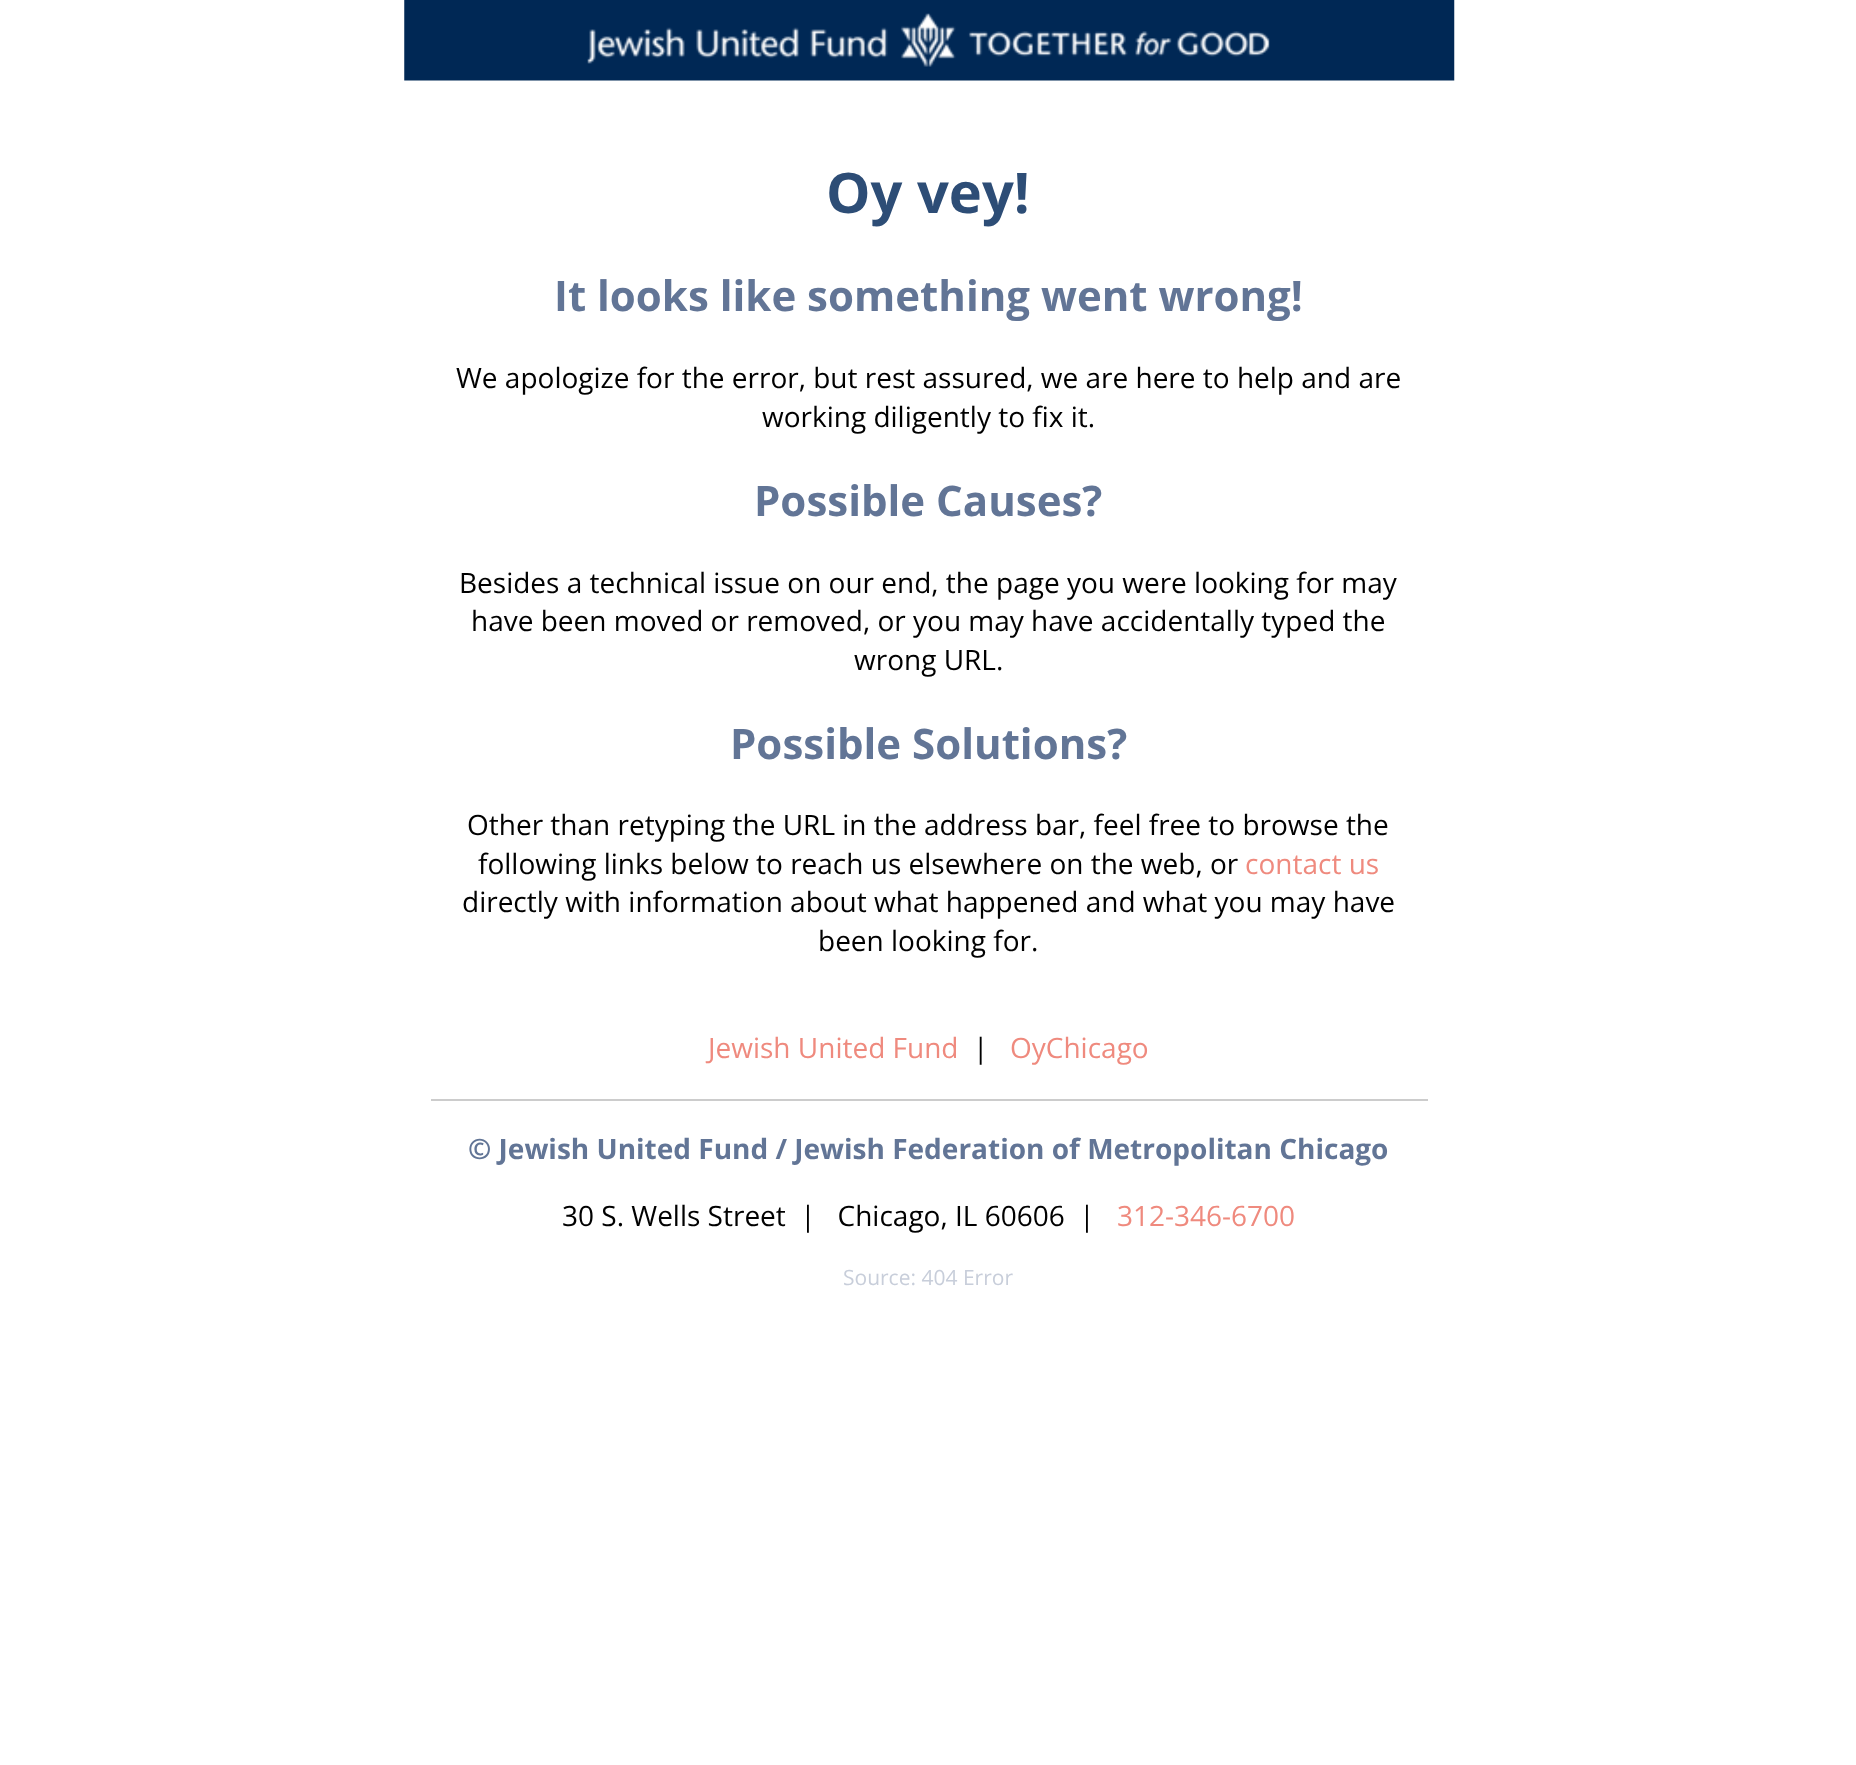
async function draw(canvas) {
  canvas.width = 1856;
  canvas.height = 1765;
  const ctx = canvas.getContext('2d');
  ctx.miterLimit = 4;
  ctx.fontKerning = 'normal';
  function label(s, x, y, font, color) {
    ctx.font = font;
    ctx.fillStyle = color;
    ctx.fillText(s, x, y);
  }
  function rect(x, y, w, h, color) {
    ctx.fillStyle = color;
    ctx.fillRect(x, y, w, h);
  }
  async function image(src, x, y, w, h) {
    const img = new Image();
    img.src = src;
    await img.decode();
    ctx.drawImage(img, x, y, w, h);
  }

  rect(0, 0, 1856, 1765, '#fff');
  await image('assets/img1.png', 404, 0, 1051, 81);
  label('Oy vey!', 826, 213, 'bold 56px Open Sans', '#2d4d76');
  label('It looks like something went wrong!', 554, 311, 'bold 42px Open Sans', '#627596');
  label('We apologize for the error, but rest assured, we are here to help and are', 456, 388, '28px Open Sans', '#000');
  label('working diligently to fix it.', 762, 427, '28px Open Sans', '#000');
  label('Possible Causes?', 754, 516, 'bold 42px Open Sans', '#627596');
  label('Besides a technical issue on our end, the page you were looking for may', 459, 593, '28px Open Sans', '#000');
  label('have been moved or removed, or you may have accidentally typed the', 471, 631, '28px Open Sans', '#000');
  label('wrong URL.', 854, 670, '28px Open Sans', '#000');
  label('Possible Solutions?', 730, 759, 'bold 42px Open Sans', '#627596');
  label('Other than retyping the URL in the address bar, feel free to browse the', 467, 835, '28px Open Sans', '#000');
  label('following links below to reach us elsewhere on the web, or', 478, 874, '28px Open Sans', '#000');
  label('contact us', 1245, 874, '28px Open Sans', '#ef8a7e');
  label('directly with information about what happened and what you may have', 462, 912, '28px Open Sans', '#000');
  label('been looking for.', 818, 951, '28px Open Sans', '#000');
  label('Jewish United Fund', 708, 1058, '28px Open Sans', '#ef8a7e');
  label('|', 973, 1058, '28px Open Sans', '#000');
  label('OyChicago', 1010, 1058, '28px Open Sans', '#ef8a7e');
  rect(431, 1099, 997, 2, '#ccc');
  label('© Jewish United Fund / Jewish Federation of Metropolitan Chicago', 468, 1159, 'bold 28px Open Sans', '#627596');
  label('30 S. Wells Street  |   Chicago, IL 60606  |', 562, 1226, '28px Open Sans', '#000');
  label('312-346-6700', 1117, 1226, '28px Open Sans', '#ef8a7e');
  label('Source: 404 Error', 843, 1285, '21px Open Sans', '#c8ceda');
}

draw(document.querySelector('canvas'));
